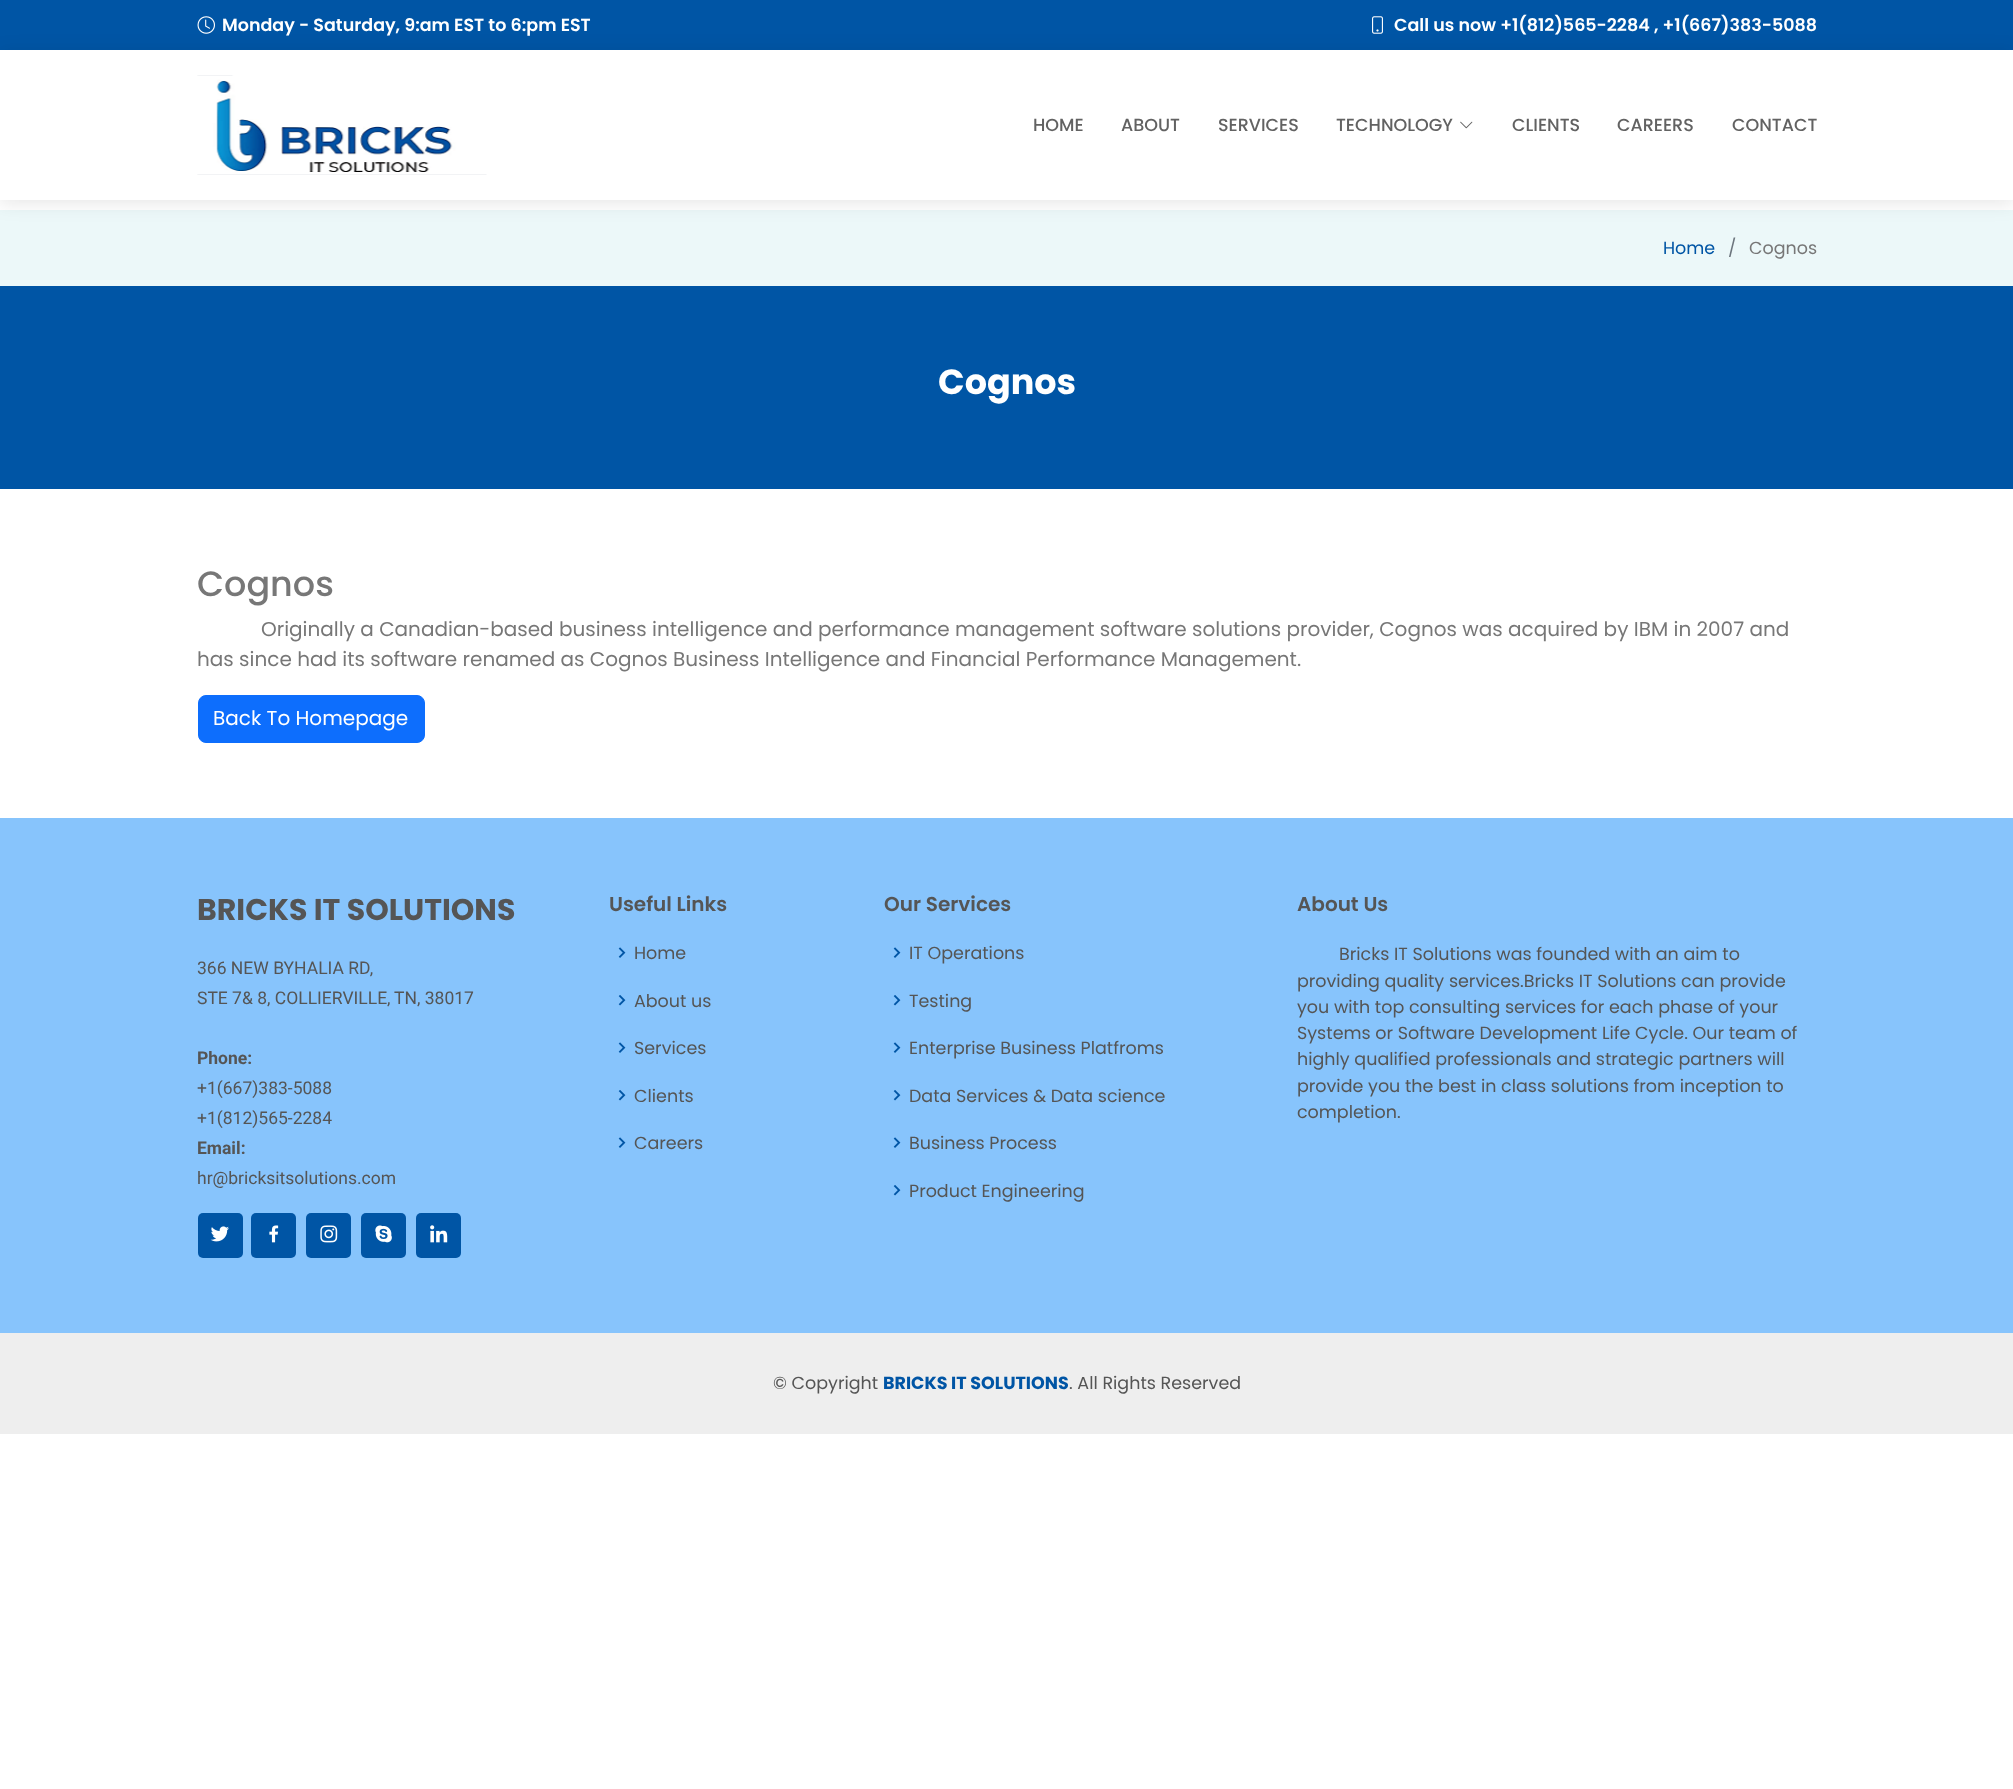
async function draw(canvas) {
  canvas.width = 2013;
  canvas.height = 1789;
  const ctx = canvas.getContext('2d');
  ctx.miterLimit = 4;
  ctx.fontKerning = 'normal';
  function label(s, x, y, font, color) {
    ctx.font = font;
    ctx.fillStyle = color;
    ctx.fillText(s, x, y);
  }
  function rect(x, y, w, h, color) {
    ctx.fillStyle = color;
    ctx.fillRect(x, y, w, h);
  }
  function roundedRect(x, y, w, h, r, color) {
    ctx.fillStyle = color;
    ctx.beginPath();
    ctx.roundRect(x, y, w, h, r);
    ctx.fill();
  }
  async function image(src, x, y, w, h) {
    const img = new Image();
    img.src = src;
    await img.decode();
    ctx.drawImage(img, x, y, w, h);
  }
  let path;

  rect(0, 0, 2013, 1789, '#fff');
  rect(0, 0, 2013, 50, '#0055a5');
  await image('assets/img1.png', 197, 16, 18, 18);
  label('Monday - Saturday, 9:am EST to 6:pm EST', 222, 31, '600 17.5px Poppins', '#fff');
  await image('assets/img2.png', 1372, 16, 11, 18);
  label('Call us now +1(812)565-2284 , +1(667)383-5088', 1394, 31, '600 17.5px Poppins', '#fff');
  rect(0, 210, 2013, 76, '#ecf8f9');
  ctx.save();
  path = new Path2D('M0 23H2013V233H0ZM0 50H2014V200H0Z');
  ctx.clip(path, 'evenodd');
  ctx.fillStyle = '#0000001a';
  ctx.filter = 'blur(9.5px)';
  ctx.beginPath();
  ctx.rect(0, 53, 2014, 150);
  ctx.fill();
  ctx.filter = 'none';
  ctx.restore();
  await image('assets/img3.png', 197, 75, 290, 100);
  label('HOME', 1033, 131, '500 17.5px Poppins', '#626262');
  label('ABOUT', 1121, 131, '500 17.5px Poppins', '#626262');
  label('SERVICES', 1218, 131, '500 17.5px Poppins', '#626262');
  label('TECHNOLOGY', 1336, 131, '500 17.5px Poppins', '#626262');
  await image('assets/img4.png', 1460, 121, 13, 8);
  label('CLIENTS', 1512, 131, '500 17.5px Poppins', '#626262');
  label('CAREERS', 1617, 131, '500 17.5px Poppins', '#626262');
  label('CONTACT', 1732, 131, '500 17.5px Poppins', '#626262');
  label('Home', 1663, 254, '17.5px Poppins', '#0055a5');
  label('/', 1728, 254, '17.5px Poppins', '#6c757d');
  label('Cognos', 1749, 254, '17.5px Poppins', '#777');
  rect(0, 286, 2013, 203, '#0055a5');
  label('Cognos', 938, 394, 'bold 35px Poppins', '#fff');
  label('Cognos', 197, 596, '500 35px Poppins', '#777');
  label('Originally a Canadian-based business intelligence and performance management software solutions provider, Cognos was acquired by IBM in 2007 and', 261, 636, '20px Poppins', '#777');
  label('has since had its software renamed as Cognos Business Intelligence and Financial Performance Management.', 197, 666, '20px Poppins', '#777');
  ctx.fillStyle = '#0d6efd';
  ctx.beginPath();
  ctx.roundRect(198.5, 695.5, 226, 47, 7.5);
  ctx.fill();
  ctx.strokeStyle = '#0d6efd';
  ctx.stroke();
  label('Back To Homepage', 213, 725, '20px Poppins', '#fff');
  rect(0, 1333, 2013, 101, '#eee');
  rect(0, 818, 2013, 515, '#87c4fc');
  label('BRICKS IT SOLUTIONS', 197, 920, 'bold 30px Poppins', '#555');
  label('366 NEW BYHALIA RD,', 197, 974, '17.5px Roboto', '#555');
  label('STE 7& 8, COLLIERVILLE,', 197, 1004, '17.5px Roboto', '#555');
  label('TN, 38017', 394, 1004, '17.5px Roboto', '#555');
  label('Phone:', 197, 1064, 'bold 17.5px Roboto', '#555');
  label('+1(667)383-5088', 197, 1094, '17.5px Roboto', '#555');
  label('+1(812)565-2284', 197, 1124, '17.5px Roboto', '#555');
  label('Email:', 197, 1154, 'bold 17.5px Roboto', '#555');
  label('hr@bricksitsolutions.com', 197, 1184, '17.5px Roboto', '#555');
  roundedRect(198, 1213, 45, 45, 5, '#0055a5');
  await image('assets/img5.png', 210, 1226, 19, 16);
  roundedRect(251, 1213, 45, 45, 5, '#0055a5');
  await image('assets/img6.png', 269, 1225, 10, 18);
  roundedRect(306, 1213, 45, 45, 5, '#0055a5');
  await image('assets/img7.png', 320, 1225, 18, 18);
  roundedRect(361, 1213, 45, 45, 5, '#0055a5');
  await image('assets/img8.png', 375, 1225, 17, 18);
  roundedRect(416, 1213, 45, 45, 5, '#0055a5');
  await image('assets/img9.png', 430, 1225, 18, 18);
  label('Useful Links', 609, 911, '600 20px Poppins', '#555');
  await image('assets/img10.png', 618, 947, 8, 11);
  label('Home', 634, 959, '17.5px Poppins', '#555');
  await image('assets/img11.png', 618, 995, 8, 11);
  label('About us', 634, 1007, '17.5px Poppins', '#555');
  await image('assets/img10.png', 618, 1042, 8, 11);
  label('Services', 634, 1054, '17.5px Poppins', '#555');
  await image('assets/img11.png', 618, 1090, 8, 11);
  label('Clients', 634, 1102, '17.5px Poppins', '#555');
  await image('assets/img10.png', 618, 1137, 8, 11);
  label('Careers', 634, 1149, '17.5px Poppins', '#555');
  label('Our Services', 884, 911, '600 20px Poppins', '#555');
  await image('assets/img10.png', 893, 947, 8, 11);
  label('IT Operations', 909, 959, '17.5px Poppins', '#555');
  await image('assets/img11.png', 893, 995, 8, 11);
  label('Testing', 909, 1007, '17.5px Poppins', '#555');
  await image('assets/img10.png', 893, 1042, 8, 11);
  label('Enterprise Business Platfroms', 909, 1054, '17.5px Poppins', '#555');
  await image('assets/img11.png', 893, 1090, 8, 11);
  label('Data Services & Data science', 909, 1102, '17.5px Poppins', '#555');
  await image('assets/img10.png', 893, 1137, 8, 11);
  label('Business Process', 909, 1149, '17.5px Poppins', '#555');
  await image('assets/img11.png', 893, 1185, 8, 11);
  label('Product Engineering', 909, 1197, '17.5px Poppins', '#555');
  label('About Us', 1297, 911, '600 20px Poppins', '#555');
  label('Bricks IT Solutions was founded with an aim to', 1339, 960, '17.5px Poppins', '#555');
  label('providing quality services.Bricks IT Solutions can provide', 1297, 987, '17.5px Poppins', '#555');
  label('you with top consulting services for each phase of your', 1297, 1013, '17.5px Poppins', '#555');
  label('Systems or Software Development Life Cycle. Our team of', 1297, 1039, '17.5px Poppins', '#555');
  label('highly qualified professionals and strategic partners will', 1297, 1065, '17.5px Poppins', '#555');
  label('provide you the best in class solutions from inception to', 1297, 1092, '17.5px Poppins', '#555');
  label('completion.', 1297, 1118, '17.5px Poppins', '#555');
  label('© Copyright', 773, 1389, '17.5px Poppins', '#555');
  label('BRICKS IT SOLUTIONS', 883, 1389, 'bold 17.5px Poppins', '#0055a5');
  label('. All Rights Reserved', 1069, 1389, '17.5px Poppins', '#555');
}

draw(document.querySelector('canvas'));
